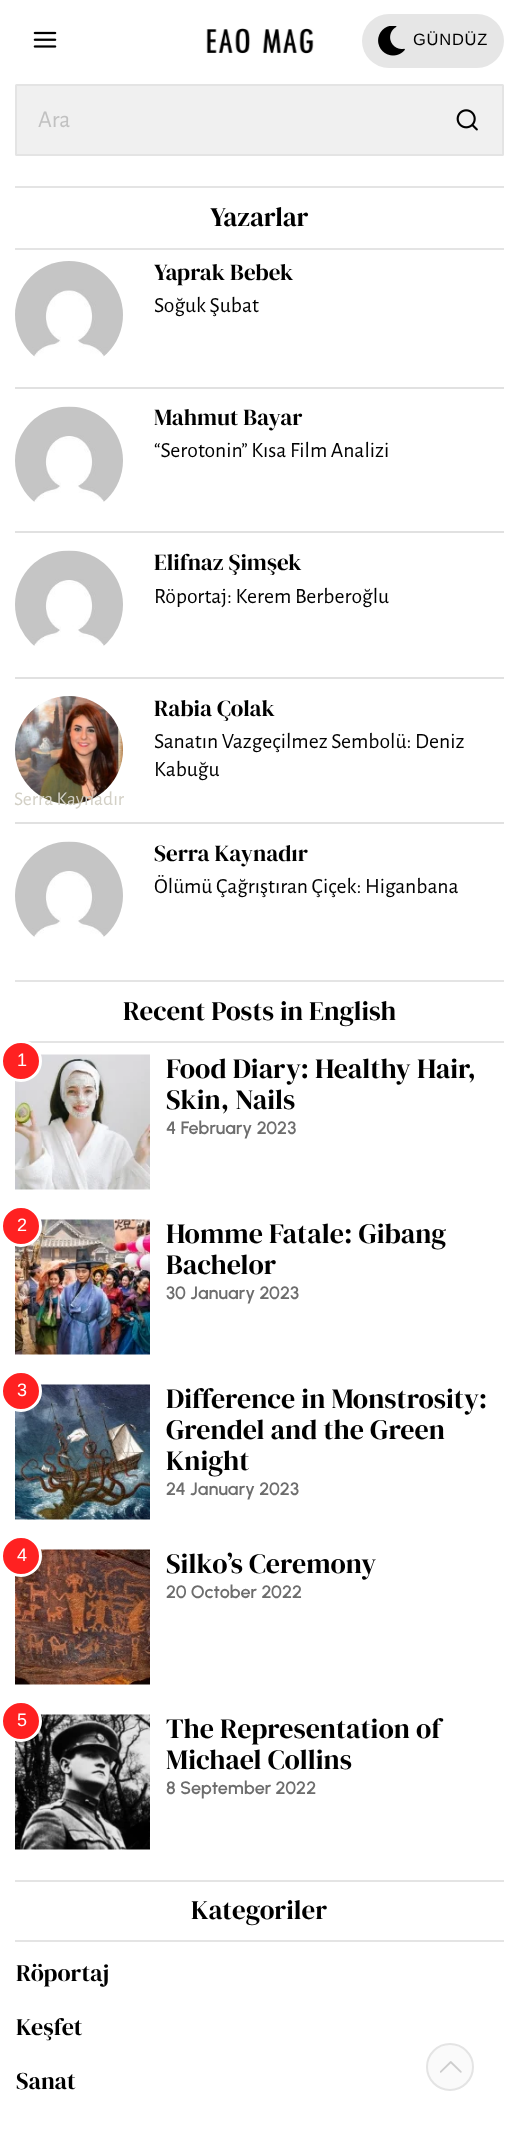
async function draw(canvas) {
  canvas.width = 519;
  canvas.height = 2136;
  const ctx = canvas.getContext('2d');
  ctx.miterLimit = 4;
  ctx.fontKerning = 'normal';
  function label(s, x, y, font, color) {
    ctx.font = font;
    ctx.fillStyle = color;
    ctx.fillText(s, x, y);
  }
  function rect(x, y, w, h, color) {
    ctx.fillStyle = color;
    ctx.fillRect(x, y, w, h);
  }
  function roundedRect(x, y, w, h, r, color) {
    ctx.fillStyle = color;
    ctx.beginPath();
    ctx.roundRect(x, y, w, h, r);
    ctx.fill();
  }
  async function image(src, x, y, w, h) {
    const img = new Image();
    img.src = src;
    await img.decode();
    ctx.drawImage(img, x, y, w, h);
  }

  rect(0, 0, 519, 2136, '#fff');
  await image('assets/img1.png', 33, 31, 24, 17);
  await image('assets/img2.png', 206, 28, 108, 26);
  roundedRect(362, 14, 142, 54, 27, '#e6e6e6');
  await image('assets/img3.png', 378, 26, 27, 30);
  ctx.letterSpacing = '0.75px';
  label('GÜNDÜZ', 413, 45, '16.5px Liberation Sans', '#000');
  ctx.fillStyle = '#f0f0f0';
  ctx.beginPath();
  ctx.roundRect(16, 85, 487, 70, 0.5);
  ctx.fill();
  ctx.strokeStyle = '#e4e4e4';
  ctx.lineWidth = 2;
  ctx.stroke();
  ctx.letterSpacing = '0px';
  label('Ara', 38, 127, '24px Alegreya Sans', '#c1c1c1');
  await image('assets/img4.png', 456, 109, 22, 22);
  rect(15, 186, 489, 2, '#e4e4e4');
  rect(15, 248, 489, 2, '#e4e4e4');
  label('Yazarlar', 210, 226, '27px DM Serif Display', '#000');
  await image('assets/img5.png', 15, 261, 108, 96);
  label('Yaprak Bebek', 154, 280, '23px DM Serif Display', '#000');
  label('Soğuk Şubat', 154, 312, '21.7px Alegreya Sans', '#000');
  rect(15, 387, 489, 2, '#e1e1e1');
  await image('assets/img6.png', 15, 406, 108, 96);
  label('Mahmut Bayar', 154, 425, '23px DM Serif Display', '#000');
  label('“Serotonin” Kısa Film Analizi', 154, 457, '21.7px Alegreya Sans', '#000');
  rect(15, 531, 489, 2, '#e1e1e1');
  await image('assets/img7.png', 15, 550, 108, 96);
  label('Elifnaz Şimşek', 154, 570, '23px DM Serif Display', '#000');
  label('Röportaj: Kerem Berberoğlu', 154, 603, '21.7px Alegreya Sans', '#000');
  rect(15, 677, 489, 2, '#e1e1e1');
  await image('assets/img8.png', 15, 696, 108, 108);
  label('Rabia Çolak', 154, 716, '23px DM Serif Display', '#000');
  label('Sanatın Vazgeçilmez Sembolü: Deniz', 154, 748, '21.7px Alegreya Sans', '#000');
  label('Kabuğu', 154, 776, '21.7px Alegreya Sans', '#000');
  rect(15, 822, 489, 2, '#e1e1e1');
  label('Serra Kaynadır', 14, 805, '19.5px Alegreya Sans', '#d3d0c6');
  await image('assets/img9.png', 15, 841, 108, 96);
  label('Serra Kaynadır', 154, 861, '23px DM Serif Display', '#000');
  label('Ölümü Çağrıştıran Çiçek: Higanbana', 154, 893, '21.7px Alegreya Sans', '#000');
  rect(15, 980, 489, 2, '#e4e4e4');
  rect(27, 1041, 477, 2, '#e4e4e4');
  label('Recent Posts in English', 123, 1020, '27px DM Serif Display', '#000');
  await image('assets/img10.png', 15, 1054, 135, 136);
  ctx.fillStyle = '#ff2121';
  ctx.beginPath();
  ctx.arc(21, 1061, 19.5, 0, 2 * Math.PI);
  ctx.fill();
  ctx.strokeStyle = '#fff';
  ctx.lineWidth = 3;
  ctx.stroke();
  label('1', 17, 1066, '18px Liberation Sans', '#fff');
  label('Food Diary: Healthy Hair,', 166, 1078, '28px DM Serif Display', '#000');
  label('Skin, Nails', 166, 1109, '28px DM Serif Display', '#000');
  label('4 February 2023', 166, 1134, '600 18px Urbanist', '#6d6d6d');
  await image('assets/img11.png', 15, 1219, 135, 136);
  ctx.fillStyle = '#ff2121';
  ctx.beginPath();
  ctx.arc(21, 1226, 19.5, 0, 2 * Math.PI);
  ctx.fill();
  ctx.stroke();
  label('2', 17, 1231, '18px Liberation Sans', '#fff');
  label('Homme Fatale: Gibang', 166, 1243, '28px DM Serif Display', '#000');
  label('Bachelor', 166, 1274, '28px DM Serif Display', '#000');
  label('30 January 2023', 166, 1299, '600 18px Urbanist', '#6d6d6d');
  await image('assets/img12.png', 15, 1384, 135, 136);
  ctx.fillStyle = '#ff2121';
  ctx.beginPath();
  ctx.arc(21, 1391, 19.5, 0, 2 * Math.PI);
  ctx.fill();
  ctx.stroke();
  label('3', 17, 1396, '18px Liberation Sans', '#fff');
  label('Difference in Monstrosity:', 166, 1408, '28px DM Serif Display', '#000');
  label('Grendel and the Green', 166, 1439, '28px DM Serif Display', '#000');
  label('Knight', 166, 1470, '28px DM Serif Display', '#000');
  label('24 January 2023', 166, 1495, '600 18px Urbanist', '#6d6d6d');
  await image('assets/img13.png', 15, 1549, 135, 136);
  ctx.fillStyle = '#ff2121';
  ctx.beginPath();
  ctx.arc(21, 1556, 19.5, 0, 2 * Math.PI);
  ctx.fill();
  ctx.stroke();
  label('4', 17, 1561, '18px Liberation Sans', '#fff');
  label('Silko’s Ceremony', 166, 1573, '28px DM Serif Display', '#000');
  label('20 October 2022', 166, 1598, '600 18px Urbanist', '#6d6d6d');
  await image('assets/img14.png', 15, 1714, 135, 136);
  ctx.fillStyle = '#ff2121';
  ctx.beginPath();
  ctx.arc(21, 1721, 19.5, 0, 2 * Math.PI);
  ctx.fill();
  ctx.stroke();
  label('5', 17, 1726, '18px Liberation Sans', '#fff');
  label('The Representation of', 166, 1738, '28px DM Serif Display', '#000');
  label('Michael Collins', 166, 1769, '28px DM Serif Display', '#000');
  label('8 September 2022', 166, 1794, '600 18px Urbanist', '#6d6d6d');
  rect(15, 1880, 489, 2, '#e4e4e4');
  rect(15, 1940, 489, 2, '#e4e4e4');
  label('Kategoriler', 191, 1919, '27px DM Serif Display', '#000');
  label('Röportaj', 16, 1981, '24px DM Serif Display', '#000');
  label('Keşfet', 16, 2035, '24px DM Serif Display', '#000');
  label('Sanat', 16, 2089, '24px DM Serif Display', '#000');
  ctx.fillStyle = '#fafafa';
  ctx.beginPath();
  ctx.arc(450, 2067, 23, 0, 2 * Math.PI);
  ctx.fill();
  ctx.strokeStyle = '#e4e4e4';
  ctx.lineWidth = 2;
  ctx.stroke();
  await image('assets/img15.png', 440, 2061, 22, 12);
}

draw(document.querySelector('canvas'));
